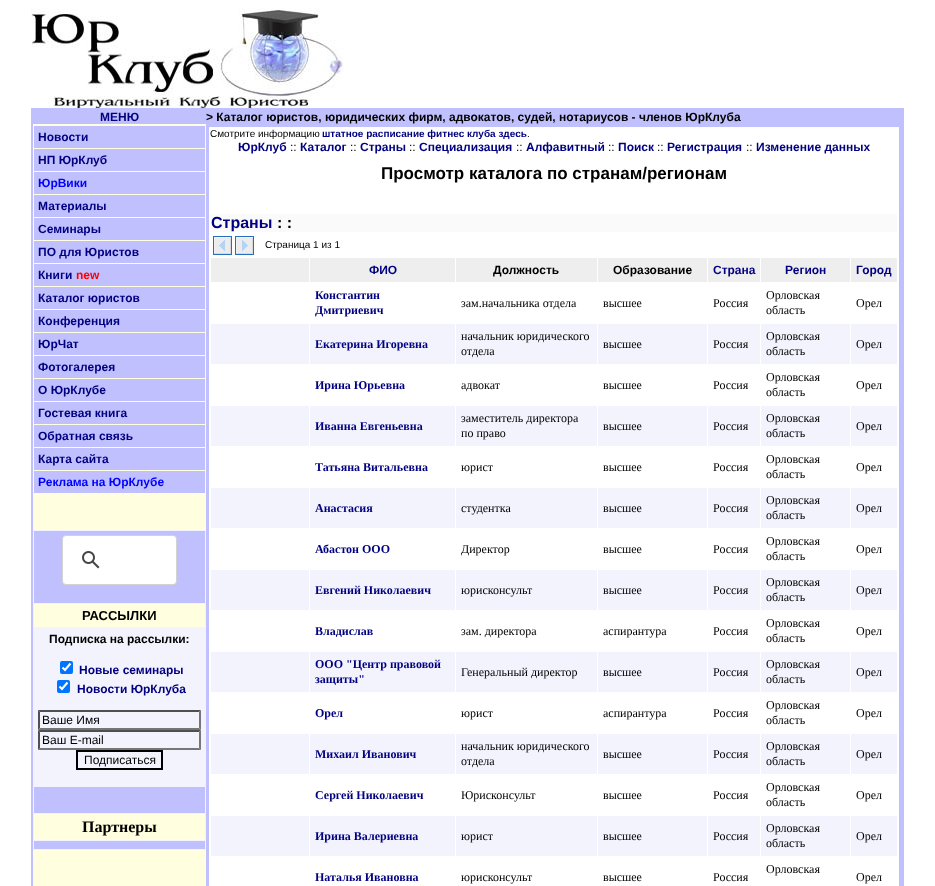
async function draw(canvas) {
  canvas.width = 935;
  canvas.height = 886;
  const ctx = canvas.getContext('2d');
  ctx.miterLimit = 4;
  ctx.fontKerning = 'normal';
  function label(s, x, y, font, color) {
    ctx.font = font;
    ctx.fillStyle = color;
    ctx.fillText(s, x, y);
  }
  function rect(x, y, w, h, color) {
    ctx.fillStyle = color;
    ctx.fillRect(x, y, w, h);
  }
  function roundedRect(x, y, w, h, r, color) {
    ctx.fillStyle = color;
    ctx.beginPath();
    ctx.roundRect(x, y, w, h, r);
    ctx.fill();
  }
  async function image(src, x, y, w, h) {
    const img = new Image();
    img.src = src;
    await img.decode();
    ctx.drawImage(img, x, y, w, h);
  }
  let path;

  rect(0, 0, 935, 886, '#fff');
  await image('assets/img1.png', 31, 8, 312, 100);
  rect(31, 108, 873, 778, '#c0c0ff');
  label('МЕНЮ', 100, 121, 'bold 12px Liberation Sans', '#000080');
  label('> Каталог юристов, юридических фирм, адвокатов, судей, нотариусов - членов ЮрКлуба', 206, 121, 'bold 12px Liberation Sans', '#000');
  rect(33, 124, 173, 762, '#ffffe0');
  rect(34, 126, 171, 22, '#c0c0ff');
  label('Новости', 38, 141, 'bold 12px Liberation Sans', '#000080');
  rect(34, 149, 171, 22, '#c0c0ff');
  label('НП ЮрКлуб', 38, 164, 'bold 12px Liberation Sans', '#000080');
  rect(34, 172, 171, 22, '#c0c0ff');
  label('ЮрВики', 38, 187, 'bold 12px Liberation Sans', '#00f');
  rect(34, 195, 171, 22, '#c0c0ff');
  label('Материалы', 38, 210, 'bold 12px Liberation Sans', '#000080');
  rect(34, 218, 171, 22, '#c0c0ff');
  label('Семинары', 38, 233, 'bold 12px Liberation Sans', '#000080');
  rect(34, 241, 171, 22, '#c0c0ff');
  label('ПО для Юристов', 38, 256, 'bold 12px Liberation Sans', '#000080');
  rect(34, 264, 171, 22, '#c0c0ff');
  label('Книги', 38, 279, 'bold 12px Liberation Sans', '#000080');
  label('new', 76, 279, 'bold 12px Liberation Sans', '#f00');
  rect(34, 287, 171, 22, '#c0c0ff');
  label('Каталог юристов', 38, 302, 'bold 12px Liberation Sans', '#000080');
  rect(34, 310, 171, 22, '#c0c0ff');
  label('Конференция', 38, 325, 'bold 12px Liberation Sans', '#000080');
  rect(34, 333, 171, 22, '#c0c0ff');
  label('ЮрЧат', 38, 348, 'bold 12px Liberation Sans', '#000080');
  rect(34, 356, 171, 22, '#c0c0ff');
  label('Фотогалерея', 38, 371, 'bold 12px Liberation Sans', '#000080');
  rect(34, 379, 171, 22, '#c0c0ff');
  label('О ЮрКлубе', 38, 394, 'bold 12px Liberation Sans', '#000080');
  rect(34, 402, 171, 22, '#c0c0ff');
  label('Гостевая книга', 38, 417, 'bold 12px Liberation Sans', '#000080');
  rect(34, 425, 171, 22, '#c0c0ff');
  label('Обратная связь', 38, 440, 'bold 12px Liberation Sans', '#000080');
  rect(34, 448, 171, 22, '#c0c0ff');
  label('Карта сайта', 38, 463, 'bold 12px Liberation Sans', '#000080');
  rect(34, 471, 171, 22, '#c0c0ff');
  label('Реклама на ЮрКлубе', 38, 486, 'bold 12px Liberation Sans', '#00f');
  rect(33, 530, 173, 320, '#f3f3fe');
  rect(34, 531, 171, 72, '#c0c0ff');
  ctx.fillStyle = '#fff';
  ctx.beginPath();
  ctx.roundRect(62.5, 535.5, 114, 49, 3.5);
  ctx.fill();
  ctx.strokeStyle = '#d2d2d2';
  ctx.stroke();
  await image('assets/img2.png', 82, 551, 18, 18);
  rect(34, 604, 171, 23, '#ffffe0');
  label('РАССЫЛКИ', 82, 620, 'bold 13px Liberation Sans', '#000');
  label('Подписка на рассылки:', 49, 643, 'bold 12px Liberation Sans', '#000');
  roundedRect(60, 661, 13, 13, 2, '#0075ff');
  path = new Path2D('M62.5 667.5L65 670L70.5 663.5');
  ctx.strokeStyle = '#fff';
  ctx.lineWidth = 2.1;
  ctx.stroke(path);
  label('Новые семинары', 79, 674, 'bold 12px Liberation Sans', '#000080');
  roundedRect(57, 680, 13, 13, 2, '#0075ff');
  path = new Path2D('M59.5 686.5L62 689L67.5 682.5');
  ctx.stroke(path);
  label('Новости ЮрКлуба', 77, 693, 'bold 12px Liberation Sans', '#000080');
  ctx.fillStyle = '#4f4f4f';
  path = new Path2D('M38 710H201L199 712H40Z');
  ctx.fill(path);
  ctx.fillStyle = '#767676';
  path = new Path2D('M201 710V730L199 728V712Z');
  ctx.fill(path);
  path = new Path2D('M201 730H38L40 728H199Z');
  ctx.fill(path);
  ctx.fillStyle = '#4f4f4f';
  path = new Path2D('M38 730V710L40 712V728Z');
  ctx.fill(path);
  label('Ваше Имя', 42, 724, '12px Liberation Sans', '#000');
  ctx.fillStyle = '#4f4f4f';
  path = new Path2D('M38 730H201L199 732H40Z');
  ctx.fill(path);
  ctx.fillStyle = '#767676';
  path = new Path2D('M201 730V750L199 748V732Z');
  ctx.fill(path);
  path = new Path2D('M201 750H38L40 748H199Z');
  ctx.fill(path);
  ctx.fillStyle = '#4f4f4f';
  path = new Path2D('M38 750V730L40 732V748Z');
  ctx.fill(path);
  label('Ваш E-mail', 42, 744, '12px Liberation Sans', '#000');
  ctx.strokeStyle = '#000';
  ctx.lineWidth = 2;
  ctx.strokeRect(77, 751, 85, 18);
  label('Подписаться', 84, 764, '12px Liberation Sans', '#000');
  rect(34, 787, 171, 26, '#c0c0ff');
  rect(34, 814, 171, 26, '#ffffe0');
  label('Партнеры', 82, 832, 'bold 16px Liberation Serif', '#000');
  rect(34, 841, 171, 8, '#c0c0ff');
  rect(209, 127, 690, 759, '#fff');
  label('Смотрите информацию', 210, 137, '10px Liberation Sans', '#000');
  label('штатное расписание фитнес клуба здесь', 322, 137, 'bold 10px Liberation Sans', '#000080');
  label('.', 527, 137, '10px Liberation Sans', '#000');
  rect(211, 214, 686, 18, '#fafafa');
  label('ЮрКлуб', 238, 151, 'bold 12px Liberation Sans', '#000080');
  label('::', 290, 151, '12px Liberation Sans', '#000');
  label('Каталог', 300, 151, 'bold 12px Liberation Sans', '#000080');
  label('::', 350, 151, '12px Liberation Sans', '#000');
  label('Страны', 360, 151, 'bold 12px Liberation Sans', '#000080');
  label('::', 409, 151, '12px Liberation Sans', '#000');
  label('Специализация', 419, 151, 'bold 12px Liberation Sans', '#000080');
  label('::', 516, 151, '12px Liberation Sans', '#000');
  label('Алфавитный', 526, 151, 'bold 12px Liberation Sans', '#000080');
  label('::', 608, 151, '12px Liberation Sans', '#000');
  label('Поиск', 618, 151, 'bold 12px Liberation Sans', '#000080');
  label('::', 657, 151, '12px Liberation Sans', '#000');
  label('Регистрация', 667, 151, 'bold 12px Liberation Sans', '#000080');
  label('::', 746, 151, '12px Liberation Sans', '#000');
  label('Изменение данных', 756, 151, 'bold 12px Liberation Sans', '#000080');
  label('Просмотр каталога по странам/регионам', 381, 179, 'bold 17px Liberation Sans', '#000');
  label('Страны', 211, 228, 'bold 16px Liberation Sans', '#000080');
  label(': :', 277, 228, 'bold 16px Liberation Sans', '#000');
  await image('assets/img3.png', 213, 236, 19, 19);
  await image('assets/img4.png', 235, 236, 19, 19);
  label('Страница 1 из 1', 265, 248, '10px Liberation Sans', '#000');
  rect(211, 258, 98, 24, '#eee');
  rect(310, 258, 145, 24, '#eee');
  label('ФИО', 369, 274, 'bold 12px Liberation Sans', '#000080');
  rect(456, 258, 141, 24, '#eee');
  label('Должность', 493, 274, 'bold 12px Liberation Sans', '#000');
  rect(598, 258, 109, 24, '#eee');
  label('Образование', 613, 274, 'bold 12px Liberation Sans', '#000');
  rect(708, 258, 52, 24, '#eee');
  label('Страна', 713, 274, 'bold 12px Liberation Sans', '#000080');
  rect(761, 258, 89, 24, '#eee');
  label('Регион', 785, 274, 'bold 12px Liberation Sans', '#000080');
  rect(851, 258, 46, 24, '#eee');
  label('Город', 856, 274, 'bold 12px Liberation Sans', '#000080');
  label('Константин', 315, 299, 'bold 12px Liberation Serif', '#000080');
  label('Дмитриевич', 315, 314, 'bold 12px Liberation Serif', '#000080');
  label('зам.начальника отдела', 461, 307, '12px Liberation Serif', '#000');
  label('высшее', 603, 307, '12px Liberation Serif', '#000');
  label('Россия', 713, 307, '12px Liberation Serif', '#000');
  label('Орловская', 766, 299, '12px Liberation Serif', '#000');
  label('область', 766, 314, '12px Liberation Serif', '#000');
  label('Орел', 856, 307, '12px Liberation Serif', '#000');
  rect(211, 324, 98, 40, '#f3f3fe');
  rect(310, 324, 145, 40, '#f3f3fe');
  label('Екатерина Игоревна', 315, 348, 'bold 12px Liberation Serif', '#000080');
  rect(456, 324, 141, 40, '#f3f3fe');
  label('начальник юридического', 461, 340, '12px Liberation Serif', '#000');
  label('отдела', 461, 355, '12px Liberation Serif', '#000');
  rect(598, 324, 109, 40, '#f3f3fe');
  label('высшее', 603, 348, '12px Liberation Serif', '#000');
  rect(708, 324, 52, 40, '#f3f3fe');
  label('Россия', 713, 348, '12px Liberation Serif', '#000');
  rect(761, 324, 89, 40, '#f3f3fe');
  label('Орловская', 766, 340, '12px Liberation Serif', '#000');
  label('область', 766, 355, '12px Liberation Serif', '#000');
  rect(851, 324, 46, 40, '#f3f3fe');
  label('Орел', 856, 348, '12px Liberation Serif', '#000');
  label('Ирина Юрьевна', 315, 389, 'bold 12px Liberation Serif', '#000080');
  label('адвокат', 461, 389, '12px Liberation Serif', '#000');
  label('высшее', 603, 389, '12px Liberation Serif', '#000');
  label('Россия', 713, 389, '12px Liberation Serif', '#000');
  label('Орловская', 766, 381, '12px Liberation Serif', '#000');
  label('область', 766, 396, '12px Liberation Serif', '#000');
  label('Орел', 856, 389, '12px Liberation Serif', '#000');
  rect(211, 406, 98, 40, '#f3f3fe');
  rect(310, 406, 145, 40, '#f3f3fe');
  label('Иванна Евгеньевна', 315, 430, 'bold 12px Liberation Serif', '#000080');
  rect(456, 406, 141, 40, '#f3f3fe');
  label('заместитель директора', 461, 422, '12px Liberation Serif', '#000');
  label('по право', 461, 437, '12px Liberation Serif', '#000');
  rect(598, 406, 109, 40, '#f3f3fe');
  label('высшее', 603, 430, '12px Liberation Serif', '#000');
  rect(708, 406, 52, 40, '#f3f3fe');
  label('Россия', 713, 430, '12px Liberation Serif', '#000');
  rect(761, 406, 89, 40, '#f3f3fe');
  label('Орловская', 766, 422, '12px Liberation Serif', '#000');
  label('область', 766, 437, '12px Liberation Serif', '#000');
  rect(851, 406, 46, 40, '#f3f3fe');
  label('Орел', 856, 430, '12px Liberation Serif', '#000');
  label('Татьяна Витальевна', 315, 471, 'bold 12px Liberation Serif', '#000080');
  label('юрист', 461, 471, '12px Liberation Serif', '#000');
  label('высшее', 603, 471, '12px Liberation Serif', '#000');
  label('Россия', 713, 471, '12px Liberation Serif', '#000');
  label('Орловская', 766, 463, '12px Liberation Serif', '#000');
  label('область', 766, 478, '12px Liberation Serif', '#000');
  label('Орел', 856, 471, '12px Liberation Serif', '#000');
  rect(211, 488, 98, 40, '#f3f3fe');
  rect(310, 488, 145, 40, '#f3f3fe');
  label('Анастасия', 315, 512, 'bold 12px Liberation Serif', '#000080');
  rect(456, 488, 141, 40, '#f3f3fe');
  label('студентка', 461, 512, '12px Liberation Serif', '#000');
  rect(598, 488, 109, 40, '#f3f3fe');
  label('высшее', 603, 512, '12px Liberation Serif', '#000');
  rect(708, 488, 52, 40, '#f3f3fe');
  label('Россия', 713, 512, '12px Liberation Serif', '#000');
  rect(761, 488, 89, 40, '#f3f3fe');
  label('Орловская', 766, 504, '12px Liberation Serif', '#000');
  label('область', 766, 519, '12px Liberation Serif', '#000');
  rect(851, 488, 46, 40, '#f3f3fe');
  label('Орел', 856, 512, '12px Liberation Serif', '#000');
  label('Абастон ООО', 315, 553, 'bold 12px Liberation Serif', '#000080');
  label('Директор', 461, 553, '12px Liberation Serif', '#000');
  label('высшее', 603, 553, '12px Liberation Serif', '#000');
  label('Россия', 713, 553, '12px Liberation Serif', '#000');
  label('Орловская', 766, 545, '12px Liberation Serif', '#000');
  label('область', 766, 560, '12px Liberation Serif', '#000');
  label('Орел', 856, 553, '12px Liberation Serif', '#000');
  rect(211, 570, 98, 40, '#f3f3fe');
  rect(310, 570, 145, 40, '#f3f3fe');
  label('Евгений Николаевич', 315, 594, 'bold 12px Liberation Serif', '#000080');
  rect(456, 570, 141, 40, '#f3f3fe');
  label('юрисконсульт', 461, 594, '12px Liberation Serif', '#000');
  rect(598, 570, 109, 40, '#f3f3fe');
  label('высшее', 603, 594, '12px Liberation Serif', '#000');
  rect(708, 570, 52, 40, '#f3f3fe');
  label('Россия', 713, 594, '12px Liberation Serif', '#000');
  rect(761, 570, 89, 40, '#f3f3fe');
  label('Орловская', 766, 586, '12px Liberation Serif', '#000');
  label('область', 766, 601, '12px Liberation Serif', '#000');
  rect(851, 570, 46, 40, '#f3f3fe');
  label('Орел', 856, 594, '12px Liberation Serif', '#000');
  label('Владислав', 315, 635, 'bold 12px Liberation Serif', '#000080');
  label('зам. директора', 461, 635, '12px Liberation Serif', '#000');
  label('аспирантура', 603, 635, '12px Liberation Serif', '#000');
  label('Россия', 713, 635, '12px Liberation Serif', '#000');
  label('Орловская', 766, 627, '12px Liberation Serif', '#000');
  label('область', 766, 642, '12px Liberation Serif', '#000');
  label('Орел', 856, 635, '12px Liberation Serif', '#000');
  rect(211, 652, 98, 40, '#f3f3fe');
  rect(310, 652, 145, 40, '#f3f3fe');
  label('ООО "Центр правовой', 315, 668, 'bold 12px Liberation Serif', '#000080');
  label('защиты"', 315, 683, 'bold 12px Liberation Serif', '#000080');
  rect(456, 652, 141, 40, '#f3f3fe');
  label('Генеральный директор', 461, 676, '12px Liberation Serif', '#000');
  rect(598, 652, 109, 40, '#f3f3fe');
  label('высшее', 603, 676, '12px Liberation Serif', '#000');
  rect(708, 652, 52, 40, '#f3f3fe');
  label('Россия', 713, 676, '12px Liberation Serif', '#000');
  rect(761, 652, 89, 40, '#f3f3fe');
  label('Орловская', 766, 668, '12px Liberation Serif', '#000');
  label('область', 766, 683, '12px Liberation Serif', '#000');
  rect(851, 652, 46, 40, '#f3f3fe');
  label('Орел', 856, 676, '12px Liberation Serif', '#000');
  label('Орел', 315, 717, 'bold 12px Liberation Serif', '#000080');
  label('юрист', 461, 717, '12px Liberation Serif', '#000');
  label('аспирантура', 603, 717, '12px Liberation Serif', '#000');
  label('Россия', 713, 717, '12px Liberation Serif', '#000');
  label('Орловская', 766, 709, '12px Liberation Serif', '#000');
  label('область', 766, 724, '12px Liberation Serif', '#000');
  label('Орел', 856, 717, '12px Liberation Serif', '#000');
  rect(211, 734, 98, 40, '#f3f3fe');
  rect(310, 734, 145, 40, '#f3f3fe');
  label('Михаил Иванович', 315, 758, 'bold 12px Liberation Serif', '#000080');
  rect(456, 734, 141, 40, '#f3f3fe');
  label('начальник юридического', 461, 750, '12px Liberation Serif', '#000');
  label('отдела', 461, 765, '12px Liberation Serif', '#000');
  rect(598, 734, 109, 40, '#f3f3fe');
  label('высшее', 603, 758, '12px Liberation Serif', '#000');
  rect(708, 734, 52, 40, '#f3f3fe');
  label('Россия', 713, 758, '12px Liberation Serif', '#000');
  rect(761, 734, 89, 40, '#f3f3fe');
  label('Орловская', 766, 750, '12px Liberation Serif', '#000');
  label('область', 766, 765, '12px Liberation Serif', '#000');
  rect(851, 734, 46, 40, '#f3f3fe');
  label('Орел', 856, 758, '12px Liberation Serif', '#000');
  label('Сергей Николаевич', 315, 799, 'bold 12px Liberation Serif', '#000080');
  label('Юрисконсульт', 461, 799, '12px Liberation Serif', '#000');
  label('высшее', 603, 799, '12px Liberation Serif', '#000');
  label('Россия', 713, 799, '12px Liberation Serif', '#000');
  label('Орловская', 766, 791, '12px Liberation Serif', '#000');
  label('область', 766, 806, '12px Liberation Serif', '#000');
  label('Орел', 856, 799, '12px Liberation Serif', '#000');
  rect(211, 816, 98, 40, '#f3f3fe');
  rect(310, 816, 145, 40, '#f3f3fe');
  label('Ирина Валериевна', 315, 840, 'bold 12px Liberation Serif', '#000080');
  rect(456, 816, 141, 40, '#f3f3fe');
  label('юрист', 461, 840, '12px Liberation Serif', '#000');
  rect(598, 816, 109, 40, '#f3f3fe');
  label('высшее', 603, 840, '12px Liberation Serif', '#000');
  rect(708, 816, 52, 40, '#f3f3fe');
  label('Россия', 713, 840, '12px Liberation Serif', '#000');
  rect(761, 816, 89, 40, '#f3f3fe');
  label('Орловская', 766, 832, '12px Liberation Serif', '#000');
  label('область', 766, 847, '12px Liberation Serif', '#000');
  rect(851, 816, 46, 40, '#f3f3fe');
  label('Орел', 856, 840, '12px Liberation Serif', '#000');
  label('Орловская', 766, 873, '12px Liberation Serif', '#000');
  label('Наталья Ивановна', 315, 881, 'bold 12px Liberation Serif', '#000080');
  label('юрисконсульт', 461, 881, '12px Liberation Serif', '#000');
  label('высшее', 603, 881, '12px Liberation Serif', '#000');
  label('Россия', 713, 881, '12px Liberation Serif', '#000');
  label('Орел', 856, 881, '12px Liberation Serif', '#000');
}

draw(document.querySelector('canvas'));
